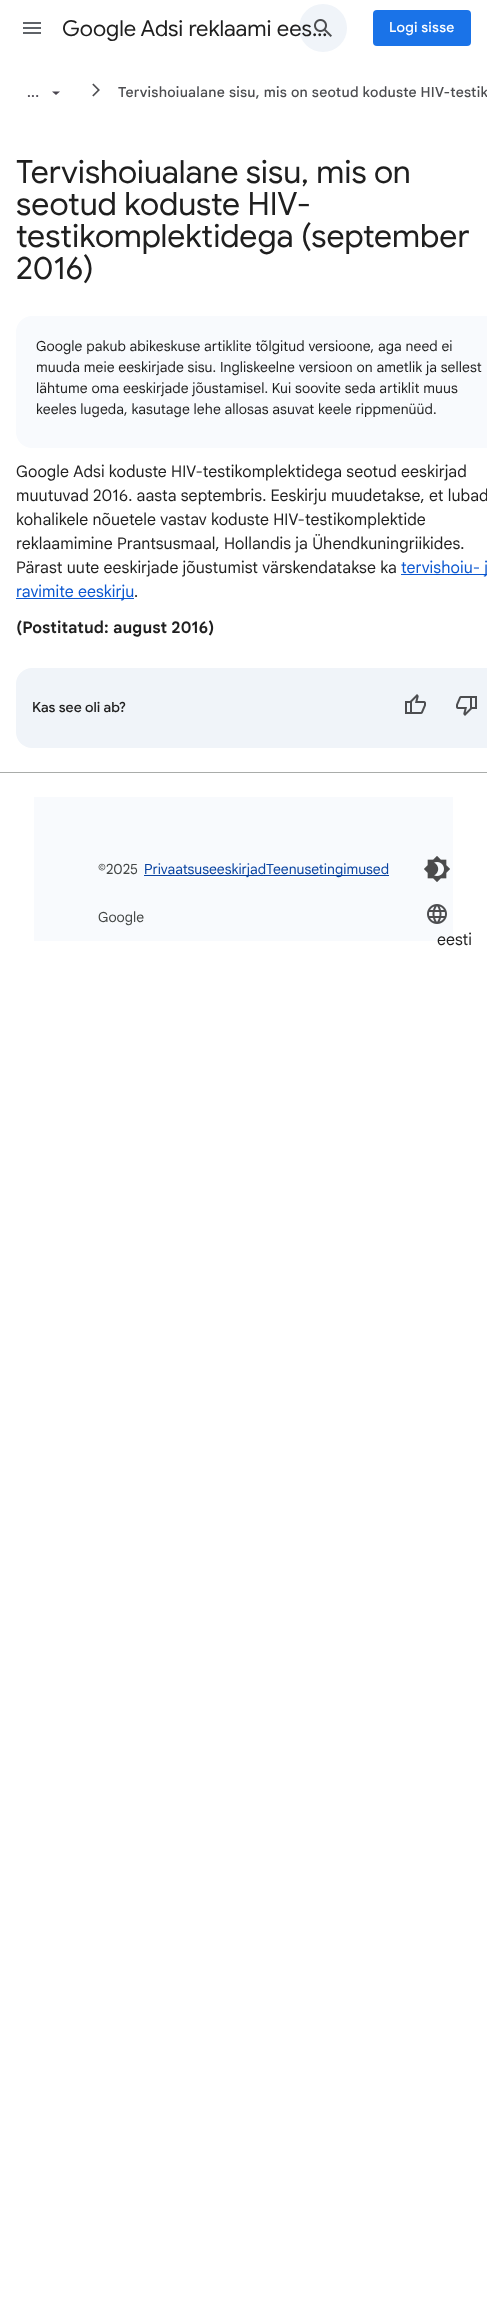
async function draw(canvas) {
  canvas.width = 487;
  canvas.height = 2298;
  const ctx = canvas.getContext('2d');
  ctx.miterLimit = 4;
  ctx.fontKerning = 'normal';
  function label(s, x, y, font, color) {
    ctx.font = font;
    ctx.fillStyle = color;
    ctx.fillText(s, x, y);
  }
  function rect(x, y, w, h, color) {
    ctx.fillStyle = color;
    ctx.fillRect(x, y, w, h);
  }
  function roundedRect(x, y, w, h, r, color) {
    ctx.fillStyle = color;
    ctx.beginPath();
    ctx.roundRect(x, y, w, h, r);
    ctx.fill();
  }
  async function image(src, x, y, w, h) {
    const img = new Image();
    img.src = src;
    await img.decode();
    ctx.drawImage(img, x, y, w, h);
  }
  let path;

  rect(0, 0, 487, 2298, '#fff');
  await image('assets/img1.png', 23, 22, 18, 12);
  ctx.fillStyle = '#f0f4f9';
  ctx.beginPath();
  ctx.arc(323, 28, 24, 0, 2 * Math.PI);
  ctx.fill();
  await image('assets/img2.png', 314, 19, 18, 18);
  label('Google Adsi reklaami ees…', 62, 36, '22px Google Sans', '#1f1f1f');
  roundedRect(373, 10, 98, 36, 4, '#1a73e8');
  ctx.letterSpacing = '0.25px';
  label('Logi sisse', 389, 32, '500 14px Google Sans', '#fff');
  ctx.fillStyle = '#49454e';
  path = new Path2D('M52 91.5L56 95L60 91.5Z');
  ctx.fill(path);
  label('...', 27, 97, '500 14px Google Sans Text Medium', '#49454e');
  await image('assets/img3.png', 92, 83, 8, 14);
  label('Tervishoiualane sisu, mis on seotud koduste HIV-testik', 118, 97, '500 14px Google Sans Text Medium', '#4c4d50');
  ctx.letterSpacing = '0px';
  label('Tervishoiualane sisu, mis on', 16, 183, '32px Google Sans', '#1f1f1f');
  label('seotud koduste HIV-', 16, 215, '32px Google Sans', '#1f1f1f');
  label('testikomplektidega (september', 16, 247, '32px Google Sans', '#1f1f1f');
  label('2016)', 16, 279, '32px Google Sans', '#1f1f1f');
  roundedRect(16, 316, 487, 132, 16, '#f8fafd');
  ctx.letterSpacing = '0.08px';
  label('Google pakub abikeskuse artiklite tõlgitud versioone, aga need ei', 36, 351, '14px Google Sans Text', '#1f1f1f');
  label('muuda meie eeskirjade sisu. Ingliskeelne versioon on ametlik ja sellest', 36, 372, '14px Google Sans Text', '#1f1f1f');
  label('lähtume oma eeskirjade jõustamisel. Kui soovite seda artiklit muus', 36, 393, '14px Google Sans Text', '#1f1f1f');
  label('keeles lugeda, kasutage lehe allosas asuvat keele rippmenüüd.', 36, 414, '14px Google Sans Text', '#1f1f1f');
  label('Google Adsi koduste HIV-testikomplektidega seotud eeskirjad', 16, 477, '16px Google Sans Text', '#1f1f1f');
  label('muutuvad 2016. aasta septembris. Eeskirju muudetakse, et lubad', 16, 501, '16px Google Sans Text', '#1f1f1f');
  label('kohalikele nõuetele vastav koduste HIV-testikomplektide', 16, 525, '16px Google Sans Text', '#1f1f1f');
  label('reklaamimine Prantsusmaal, Hollandis ja Ühendkuningriikides.', 16, 549, '16px Google Sans Text', '#1f1f1f');
  label('Pärast uute eeskirjade jõustumist värskendatakse ka', 16, 573, '16px Google Sans Text', '#1f1f1f');
  rect(401, 574, 86, 1, '#0b57d0');
  label('tervishoiu- j', 401, 573, '16px Google Sans Text', '#0b57d0');
  rect(16, 598, 118, 1, '#0b57d0');
  label('ravimite eeskirju', 16, 597, '16px Google Sans Text', '#0b57d0');
  label('.', 134, 597, '16px Google Sans Text', '#1f1f1f');
  label('(Postitatud: august 2016)', 16, 633, 'bold 16px Google Sans Text', '#1f1f1f');
  roundedRect(16, 668, 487, 80, 16, '#f0f4f9');
  ctx.letterSpacing = '0px';
  label('Kas see oli ab?', 32, 712, '500 14px Google Sans', '#1f1f1f');
  await image('assets/img4.png', 405, 694, 21, 20);
  await image('assets/img5.png', 456, 696, 21, 20);
  rect(0, 772, 487, 1, '#a9acaa');
  rect(34, 797, 419, 144, '#f8fafd');
  label('©2025', 98, 874, '14px Google Sans Text', '#444746');
  label('Google', 98, 922, '14px Google Sans Text', '#444746');
  rect(144, 875, 245, 1, '#0842a0');
  label('PrivaatsuseeskirjadTeenusetingimused', 144, 874, '14px Google Sans Text', '#0842a0');
  await image('assets/img6.png', 424, 856, 26, 26);
  await image('assets/img7.png', 427, 904, 20, 20);
  label('eesti', 437, 945, '16px Google Sans Text', '#1f1f1f');
}

draw(document.querySelector('canvas'));
